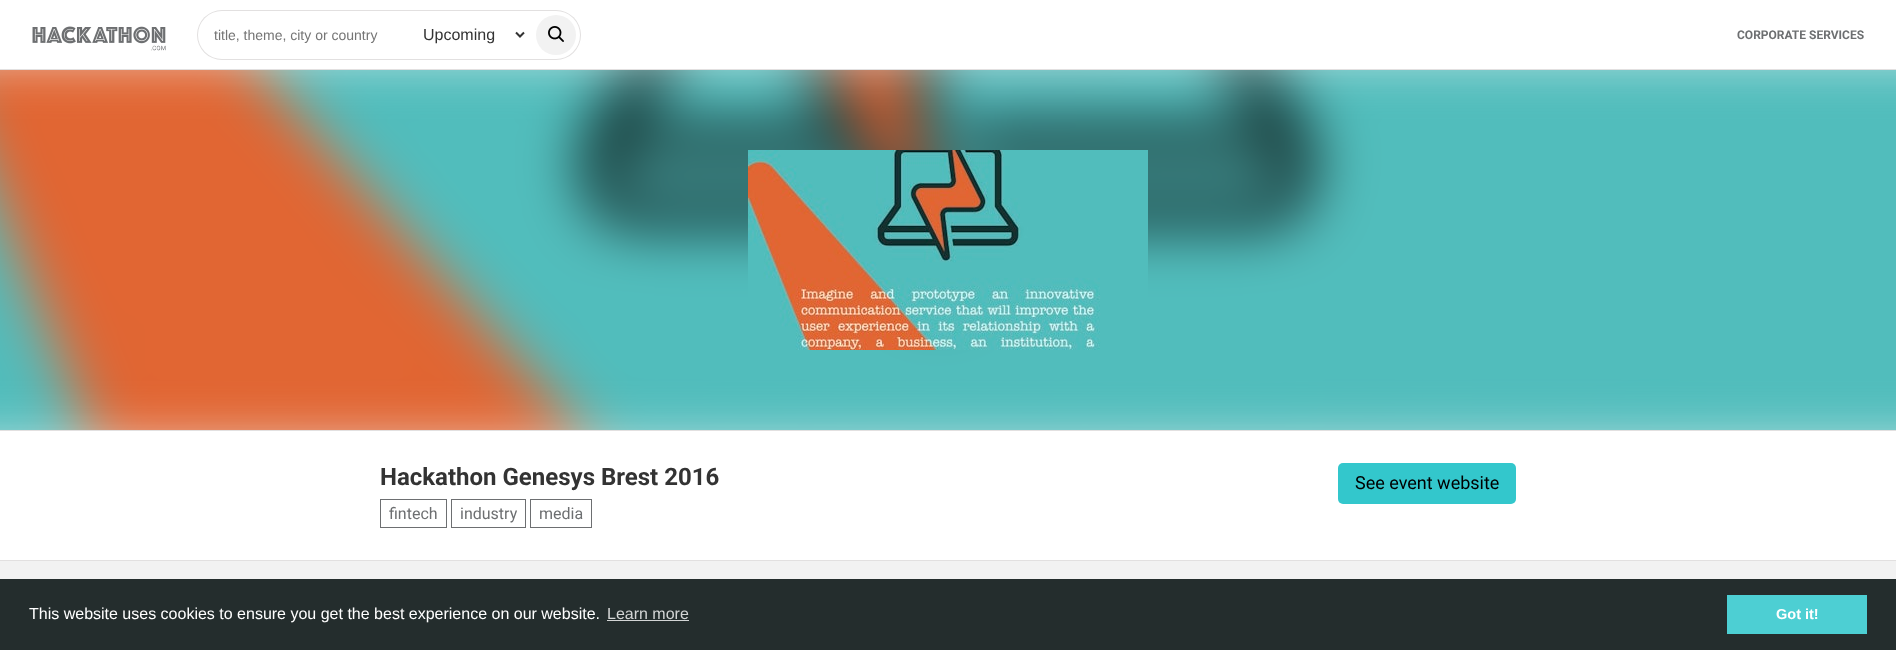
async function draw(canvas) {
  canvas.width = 1896;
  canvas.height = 650;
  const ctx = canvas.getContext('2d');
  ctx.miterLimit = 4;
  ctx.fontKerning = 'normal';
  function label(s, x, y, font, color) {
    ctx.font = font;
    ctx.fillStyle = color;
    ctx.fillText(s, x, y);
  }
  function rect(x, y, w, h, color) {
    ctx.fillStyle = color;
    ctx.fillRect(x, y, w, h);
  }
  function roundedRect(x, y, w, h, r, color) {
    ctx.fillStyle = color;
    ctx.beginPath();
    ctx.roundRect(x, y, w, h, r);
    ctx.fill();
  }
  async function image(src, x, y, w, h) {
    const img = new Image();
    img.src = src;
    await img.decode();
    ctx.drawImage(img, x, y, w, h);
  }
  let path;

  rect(0, 0, 1896, 650, '#fff');
  rect(0, 69, 1896, 1, '#e2e0e0');
  await image('assets/img1.png', 32, 26, 134, 25);
  ctx.filter = 'blur(0.5px)';
  ctx.beginPath();
  ctx.roundRect(197, 10, 384, 50, 25);
  ctx.fill();
  ctx.filter = 'none';
  roundedRect(198, 11, 382, 48, 24, '#fff');
  label('title, theme, city or country', 214, 40, '14px Liberation Sans', '#757575');
  path = new Path2D('M516 32.5L520 36.5L524 32.5');
  ctx.strokeStyle = '#333';
  ctx.lineWidth = 2;
  ctx.stroke(path);
  label('Upcoming', 423, 40, '16px Liberation Sans', '#333');
  ctx.fillStyle = '#f2f2f2';
  ctx.beginPath();
  ctx.arc(556, 35, 20, 0, 2 * Math.PI);
  ctx.fill();
  await image('assets/img2.png', 548, 26, 16, 16);
  label('CORPORATE SERVICES', 1737, 39, 'bold 12px Roboto', '#6d6f71');
  rect(0, 70, 1896, 509, '#f2f2f2');
  await image('assets/img3.png', 0, 70, 1896, 360);
  await image('assets/img4.png', 748, 150, 400, 200);
  rect(0, 431, 1896, 129, '#fff');
  rect(0, 430, 1896, 1, '#e2e0e0');
  rect(0, 560, 1896, 1, '#e2e0e0');
  label('Hackathon Genesys Brest 2016', 380, 485, 'bold 24px Roboto', '#333');
  ctx.strokeStyle = '#6d6f71';
  ctx.lineWidth = 1;
  ctx.strokeRect(380.5, 499.5, 66, 28);
  label('fintech', 389, 519, '16px Roboto', '#6d6f71');
  ctx.strokeRect(451.5, 499.5, 74, 28);
  label('industry', 460, 519, '16px Roboto', '#6d6f71');
  ctx.strokeRect(530.5, 499.5, 61, 28);
  label('media', 539, 519, '16px Roboto', '#6d6f71');
  roundedRect(1338, 463, 178, 41, 5, '#33c7cc');
  label('See event website', 1355, 489, '18px Roboto', '#000');
  rect(0, 579, 1896, 71, '#242d2d');
  label('This website uses cookies to ensure you get the best experience on our website.', 29, 619, '16px Liberation Sans', '#fff');
  label('Learn more', 607, 619, '16px Liberation Sans', '#d3d5d5');
  rect(607, 620, 82, 1, '#d3d5d5');
  rect(1727, 595, 140, 39, '#4dcfd3');
  label('Got it!', 1776, 619, 'bold 14.5px Liberation Sans', '#fff');
}

draw(document.querySelector('canvas'));
